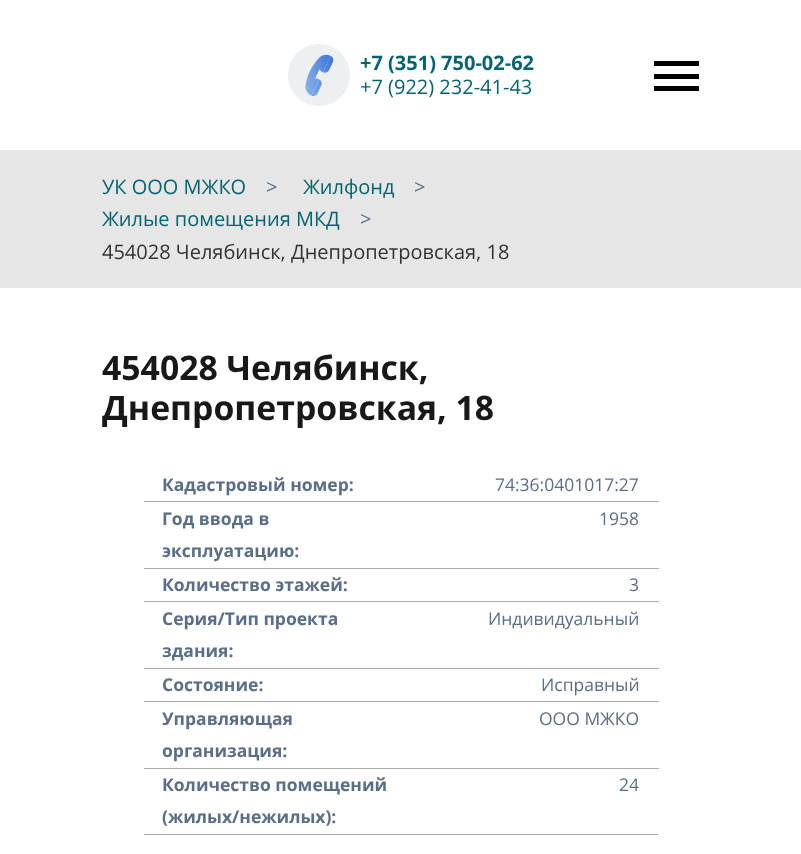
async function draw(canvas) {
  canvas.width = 801;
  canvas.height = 854;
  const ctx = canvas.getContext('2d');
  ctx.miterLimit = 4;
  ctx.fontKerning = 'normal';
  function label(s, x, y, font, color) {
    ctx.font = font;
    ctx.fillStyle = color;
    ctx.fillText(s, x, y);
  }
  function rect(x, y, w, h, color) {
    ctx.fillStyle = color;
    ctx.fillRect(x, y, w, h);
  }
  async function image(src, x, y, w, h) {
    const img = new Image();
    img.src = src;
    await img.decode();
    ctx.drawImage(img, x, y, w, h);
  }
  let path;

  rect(0, 0, 801, 854, '#fff');
  await image('assets/img1.png', 288, 44, 62, 62);
  label('+7 (351) 750-02-62', 360, 70, 'bold 20px Open Sans', '#066370');
  label('+7 (922) 232-41-43', 360, 94, '20px Open Sans', '#066370');
  ctx.fillStyle = '#000';
  path = new Path2D('M654 91H699V86H654ZM654 79H699V74H654ZM654 61V66H699V61Z');
  ctx.fill(path);
  rect(0, 150, 801, 138, '#e6e6e6');
  label('УК ООО МЖКО', 102, 194, '20px Open Sans', '#066370');
  label('>', 266, 194, '20px Open Sans', '#5a6e86');
  label('Жилфонд', 303, 194, '20px Open Sans', '#066370');
  label('>', 414, 194, '20px Open Sans', '#5a6e86');
  label('Жилые помещения МКД', 102, 226, '20px Open Sans', '#066370');
  label('>', 360, 226, '20px Open Sans', '#5a6e86');
  label('454028 Челябинск, Днепропетровская, 18', 102, 259, '20px Open Sans', '#333');
  label('454028 Челябинск,', 102, 380, 'bold 33.75px Open Sans', '#181818');
  label('Днепропетровская, 18', 102, 420, 'bold 33.75px Open Sans', '#181818');
  rect(144, 501, 515, 1, '#aaa');
  label('Кадастровый номер:', 162, 491, 'bold 17.5px Open Sans', '#5a6e86');
  label('74:36:0401017:27', 495, 491, '17.5px Open Sans', '#5a6e86');
  rect(144, 568, 515, 1, '#aaa');
  label('Год ввода в', 162, 525, 'bold 17.5px Open Sans', '#5a6e86');
  label('эксплуатацию:', 162, 557, 'bold 17.5px Open Sans', '#5a6e86');
  label('1958', 599, 525, '17.5px Open Sans', '#5a6e86');
  rect(144, 601, 515, 1, '#aaa');
  label('Количество этажей:', 162, 591, 'bold 17.5px Open Sans', '#5a6e86');
  label('3', 629, 591, '17.5px Open Sans', '#5a6e86');
  rect(144, 668, 515, 1, '#aaa');
  label('Серия/Тип проекта', 162, 625, 'bold 17.5px Open Sans', '#5a6e86');
  label('здания:', 162, 657, 'bold 17.5px Open Sans', '#5a6e86');
  label('Индивидуальный', 488, 625, '17.5px Open Sans', '#5a6e86');
  rect(144, 701, 515, 1, '#aaa');
  label('Состояние:', 162, 691, 'bold 17.5px Open Sans', '#5a6e86');
  label('Исправный', 541, 691, '17.5px Open Sans', '#5a6e86');
  rect(144, 768, 515, 1, '#aaa');
  label('Управляющая', 162, 725, 'bold 17.5px Open Sans', '#5a6e86');
  label('организация:', 162, 757, 'bold 17.5px Open Sans', '#5a6e86');
  label('ООО МЖКО', 539, 725, '17.5px Open Sans', '#5a6e86');
  rect(144, 834, 514, 1, '#aaa');
  label('Количество помещений', 162, 791, 'bold 17.5px Open Sans', '#5a6e86');
  label('(жилых/нежилых):', 162, 823, 'bold 17.5px Open Sans', '#5a6e86');
  label('24', 619, 791, '17.5px Open Sans', '#5a6e86');
}

draw(document.querySelector('canvas'));
